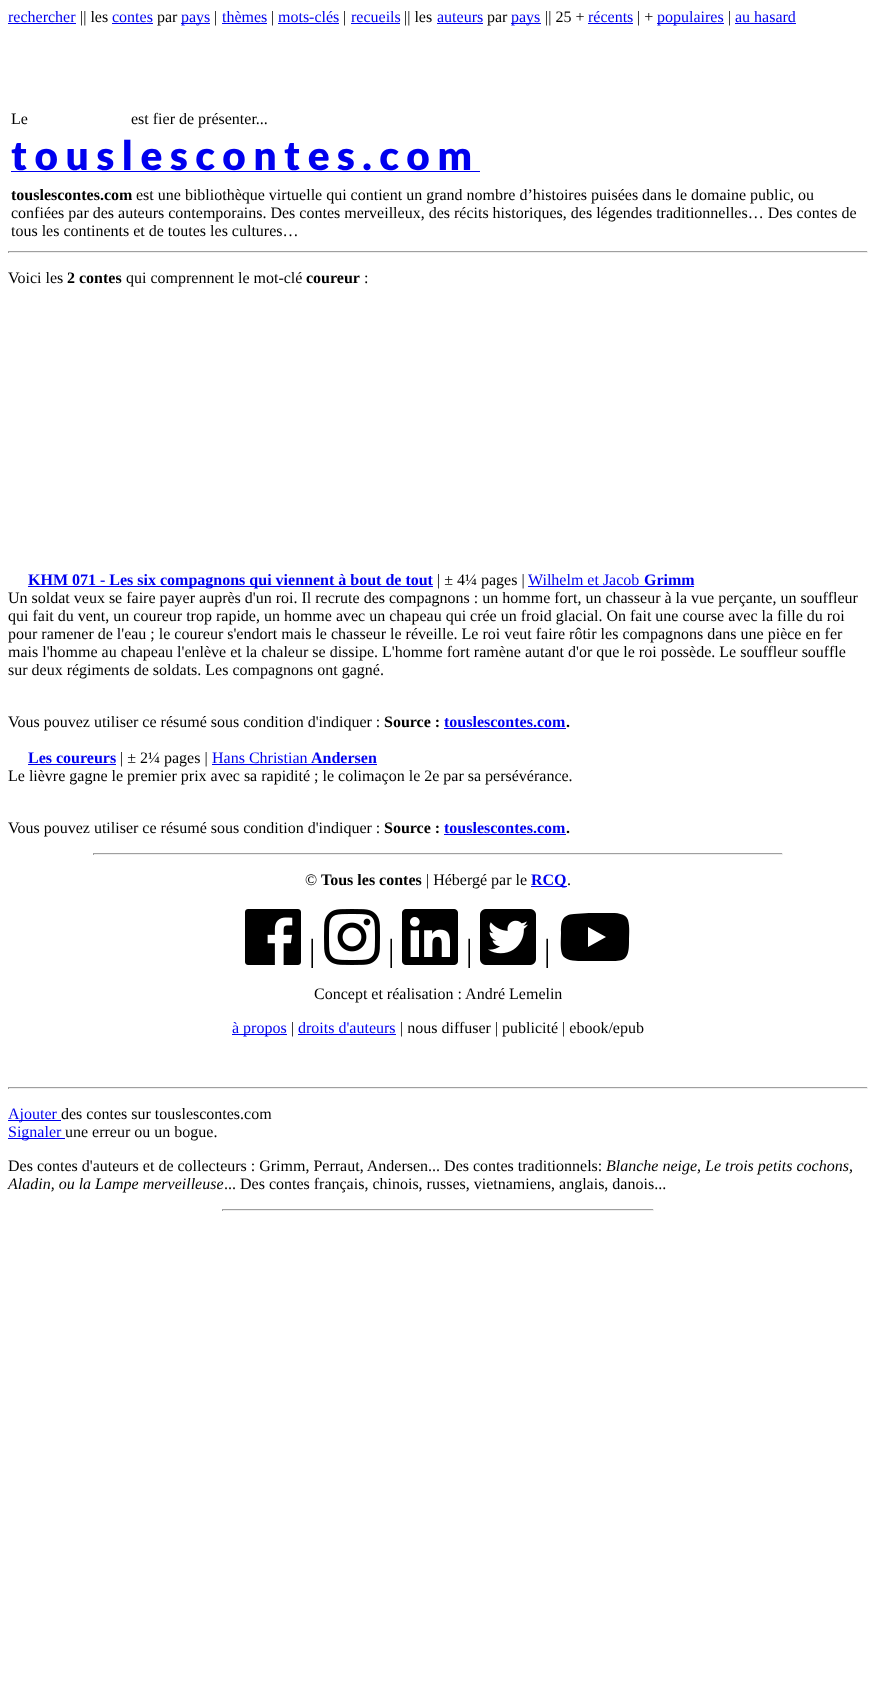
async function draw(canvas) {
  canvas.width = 876;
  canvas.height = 1685;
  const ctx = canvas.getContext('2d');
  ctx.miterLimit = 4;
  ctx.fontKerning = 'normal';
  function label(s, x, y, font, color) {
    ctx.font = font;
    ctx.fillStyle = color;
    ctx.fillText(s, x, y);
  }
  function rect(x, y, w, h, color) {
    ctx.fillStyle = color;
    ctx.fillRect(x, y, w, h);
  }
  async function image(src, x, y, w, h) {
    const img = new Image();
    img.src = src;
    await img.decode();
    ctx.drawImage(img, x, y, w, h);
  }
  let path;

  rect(0, 0, 876, 1685, '#fff');
  label('rechercher', 8, 22, '16px Liberation Serif', '#00e');
  rect(8, 23, 68, 1, '#00e');
  label('|| les', 80, 22, '16px Liberation Serif', '#000');
  label('contes', 112, 22, '16px Liberation Serif', '#00e');
  label('par', 157, 22, '16px Liberation Serif', '#000');
  rect(112, 23, 41, 1, '#00e');
  rect(181, 23, 29, 1, '#00e');
  label('pays', 181, 22, '16px Liberation Serif', '#00e');
  label('|', 214, 22, '16px Liberation Serif', '#000');
  label('thèmes', 222, 22, '16px Liberation Serif', '#00e');
  rect(222, 23, 45, 1, '#00e');
  label('|', 271, 22, '16px Liberation Serif', '#000');
  label('mots-clés', 278, 22, '16px Liberation Serif', '#00e');
  rect(278, 23, 61, 1, '#00e');
  label('|', 343, 22, '16px Liberation Serif', '#000');
  label('recueils', 351, 22, '16px Liberation Serif', '#00e');
  rect(351, 23, 49, 1, '#00e');
  label('|| les', 404, 22, '16px Liberation Serif', '#000');
  label('auteurs', 437, 22, '16px Liberation Serif', '#00e');
  label('par', 487, 22, '16px Liberation Serif', '#000');
  rect(437, 23, 46, 1, '#00e');
  rect(511, 23, 30, 1, '#00e');
  label('pays', 511, 22, '16px Liberation Serif', '#00e');
  label('|| 25 +', 545, 22, '16px Liberation Serif', '#000');
  label('récents', 588, 22, '16px Liberation Serif', '#00e');
  rect(588, 23, 45, 1, '#00e');
  label('| +', 637, 22, '16px Liberation Serif', '#000');
  rect(657, 23, 67, 1, '#00e');
  label('populaires', 657, 22, '16px Liberation Serif', '#00e');
  label('|', 728, 22, '16px Liberation Serif', '#000');
  label('au hasard', 735, 22, '16px Liberation Serif', '#00e');
  rect(735, 23, 61, 1, '#00e');
  label('Le', 11, 124, '16px Liberation Serif', '#000');
  label('est fier de présenter...', 131, 124, '16px Liberation Serif', '#000');
  ctx.letterSpacing = '7.4px';
  label('touslescontes.com', 11, 170, '900 40.5px Lato', '#00e');
  rect(11, 171, 469, 1, '#00e');
  ctx.letterSpacing = '0px';
  label('touslescontes.com', 11, 200, 'bold 16px Liberation Serif', '#000');
  label('est une bibliothèque virtuelle qui contient un grand nombre d’histoires puisées dans le domaine public, ou', 136, 200, '16px Liberation Serif', '#000');
  label('confiées par des auteurs contemporains. Des contes merveilleux, des récits historiques, des légendes traditionnelles… Des contes de', 11, 218, '16px Liberation Serif', '#000');
  label('tous les continents et de toutes les cultures…', 11, 236, '16px Liberation Serif', '#000');
  rect(8, 251, 860, 1, '#9f9f9f');
  rect(867, 251, 1, 2, '#eee');
  rect(8, 252, 860, 1, '#eee');
  rect(8, 251, 1, 2, '#9f9f9f');
  label('Voici les', 8, 283, '16px Liberation Serif', '#000');
  label('2 contes', 67, 283, 'bold 16px Liberation Serif', '#000');
  label('qui comprennent le mot-clé', 126, 283, '16px Liberation Serif', '#000');
  label('coureur', 306, 283, 'bold 16px Liberation Serif', '#000');
  label(':', 364, 283, '16px Liberation Serif', '#000');
  rect(28, 586, 405, 1, '#00e');
  label('KHM 071 - Les six compagnons qui viennent à bout de tout', 28, 585, 'bold 16px Liberation Serif', '#00e');
  label('| ± 4¼ pages |', 437, 585, '16px Liberation Serif', '#000');
  label('Wilhelm et Jacob', 528, 585, '16px Liberation Serif', '#00e');
  rect(528, 586, 166, 1, '#00e');
  label('Grimm', 644, 585, 'bold 16px Liberation Serif', '#00e');
  label('Un soldat veux se faire payer auprès d\'un roi. Il recrute des compagnons : un homme fort, un chasseur à la vue perçante, un souffleur', 8, 603, '16px Liberation Serif', '#000');
  label('qui fait du vent, un coureur trop rapide, un homme avec un chapeau qui crée un froid glacial. On fait une course avec la fille du roi', 8, 621, '16px Liberation Serif', '#000');
  label('pour ramener de l\'eau ; le coureur s\'endort mais le chasseur le réveille. Le roi veut faire rôtir les compagnons dans une pièce en fer', 8, 639, '16px Liberation Serif', '#000');
  label('mais l\'homme au chapeau l\'enlève et la chaleur se dissipe. L\'homme fort ramène autant d\'or que le roi possède. Le souffleur souffle', 8, 657, '16px Liberation Serif', '#000');
  label('sur deux régiments de soldats. Les compagnons ont gagné.', 8, 675, '16px Liberation Serif', '#000');
  label('Vous pouvez utiliser ce résumé sous condition d\'indiquer :', 8, 727, '16px Liberation Serif', '#000');
  label('Source :', 384, 727, 'bold 16px Liberation Serif', '#000');
  label('touslescontes.com', 444, 727, 'bold 16px Liberation Serif', '#00e');
  label('.', 566, 727, 'bold 16px Liberation Serif', '#000');
  rect(444, 728, 122, 1, '#00e');
  label('Les coureurs', 28, 763, 'bold 16px Liberation Serif', '#00e');
  rect(28, 764, 88, 1, '#00e');
  label('| ± 2¼ pages |', 120, 763, '16px Liberation Serif', '#000');
  label('Hans Christian', 212, 763, '16px Liberation Serif', '#00e');
  rect(212, 764, 165, 1, '#00e');
  label('Andersen', 311, 763, 'bold 16px Liberation Serif', '#00e');
  label('Le lièvre gagne le premier prix avec sa rapidité ; le colimaçon le 2e par sa persévérance.', 8, 781, '16px Liberation Serif', '#000');
  label('Vous pouvez utiliser ce résumé sous condition d\'indiquer :', 8, 833, '16px Liberation Serif', '#000');
  label('Source :', 384, 833, 'bold 16px Liberation Serif', '#000');
  label('touslescontes.com', 444, 833, 'bold 16px Liberation Serif', '#00e');
  label('.', 566, 833, 'bold 16px Liberation Serif', '#000');
  rect(444, 834, 122, 1, '#00e');
  rect(93, 853, 690, 1, '#9f9f9f');
  rect(782, 853, 1, 2, '#eee');
  rect(93, 854, 690, 1, '#eee');
  rect(93, 853, 1, 2, '#9f9f9f');
  label('©', 305, 885, '16px Liberation Serif', '#000');
  label('Tous les contes', 321, 885, 'bold 16px Liberation Serif', '#000');
  label('| Hébergé par le', 426, 885, '16px Liberation Serif', '#000');
  rect(531, 886, 36, 1, '#00e');
  label('RCQ', 531, 885, 'bold 16px Liberation Serif', '#00e');
  label('.', 567, 885, '16px Liberation Serif', '#000');
  await image('assets/img1.png', 245, 909, 56, 56);
  label('|', 309, 961, '32px Liberation Serif', '#000');
  await image('assets/img2.png', 324, 909, 56, 56);
  label('|', 388, 961, '32px Liberation Serif', '#000');
  await image('assets/img3.png', 402, 909, 56, 56);
  label('|', 466, 961, '32px Liberation Serif', '#000');
  await image('assets/img4.png', 480, 909, 56, 56);
  label('|', 544, 961, '32px Liberation Serif', '#000');
  path = new Path2D('M628 920C626 913 616 913 609 913H589L574 914C562 915 561 921 561 932C561 939 560 947 562 954C565 962 579 961 586 961H603C622 961 629 963 629 942C629 935 630 927 628 920ZM588 947V927L606 937Z');
  ctx.fill(path);
  label('Concept et réalisation : André Lemelin', 314, 999, '16px Liberation Serif', '#000');
  rect(232, 1034, 55, 1, '#00e');
  label('à propos', 232, 1033, '16px Liberation Serif', '#00e');
  label('|', 291, 1033, '16px Liberation Serif', '#000');
  label('droits d\'auteurs', 298, 1033, '16px Liberation Serif', '#00e');
  rect(298, 1034, 98, 1, '#00e');
  label('| nous diffuser | publicité | ebook/epub', 400, 1033, '16px Liberation Serif', '#000');
  rect(8, 1087, 860, 1, '#9f9f9f');
  rect(867, 1087, 1, 2, '#eee');
  rect(8, 1088, 860, 1, '#eee');
  rect(8, 1087, 1, 2, '#9f9f9f');
  rect(8, 1120, 53, 1, '#00e');
  label('Ajouter', 8, 1119, '16px Liberation Serif', '#00e');
  label('des contes sur touslescontes.com', 61, 1119, '16px Liberation Serif', '#000');
  rect(8, 1138, 57, 1, '#00e');
  label('Signaler', 8, 1137, '16px Liberation Serif', '#00e');
  label('une erreur ou un bogue.', 65, 1137, '16px Liberation Serif', '#000');
  label('Des contes d\'auteurs et de collecteurs : Grimm, Perraut, Andersen... Des contes traditionnels:', 8, 1171, '16px Liberation Serif', '#000');
  label('Blanche neige, Le trois petits cochons,', 606, 1171, 'italic 16px Liberation Serif', '#000');
  label('Aladin, ou la Lampe merveilleuse', 8, 1189, 'italic 16px Liberation Serif', '#000');
  label('... Des contes français, chinois, russes, vietnamiens, anglais, danois...', 224, 1189, '16px Liberation Serif', '#000');
  rect(222, 1209, 432, 1, '#9f9f9f');
  rect(653, 1209, 1, 2, '#eee');
  rect(222, 1210, 432, 1, '#eee');
  rect(222, 1209, 1, 2, '#9f9f9f');
}

draw(document.querySelector('canvas'));
